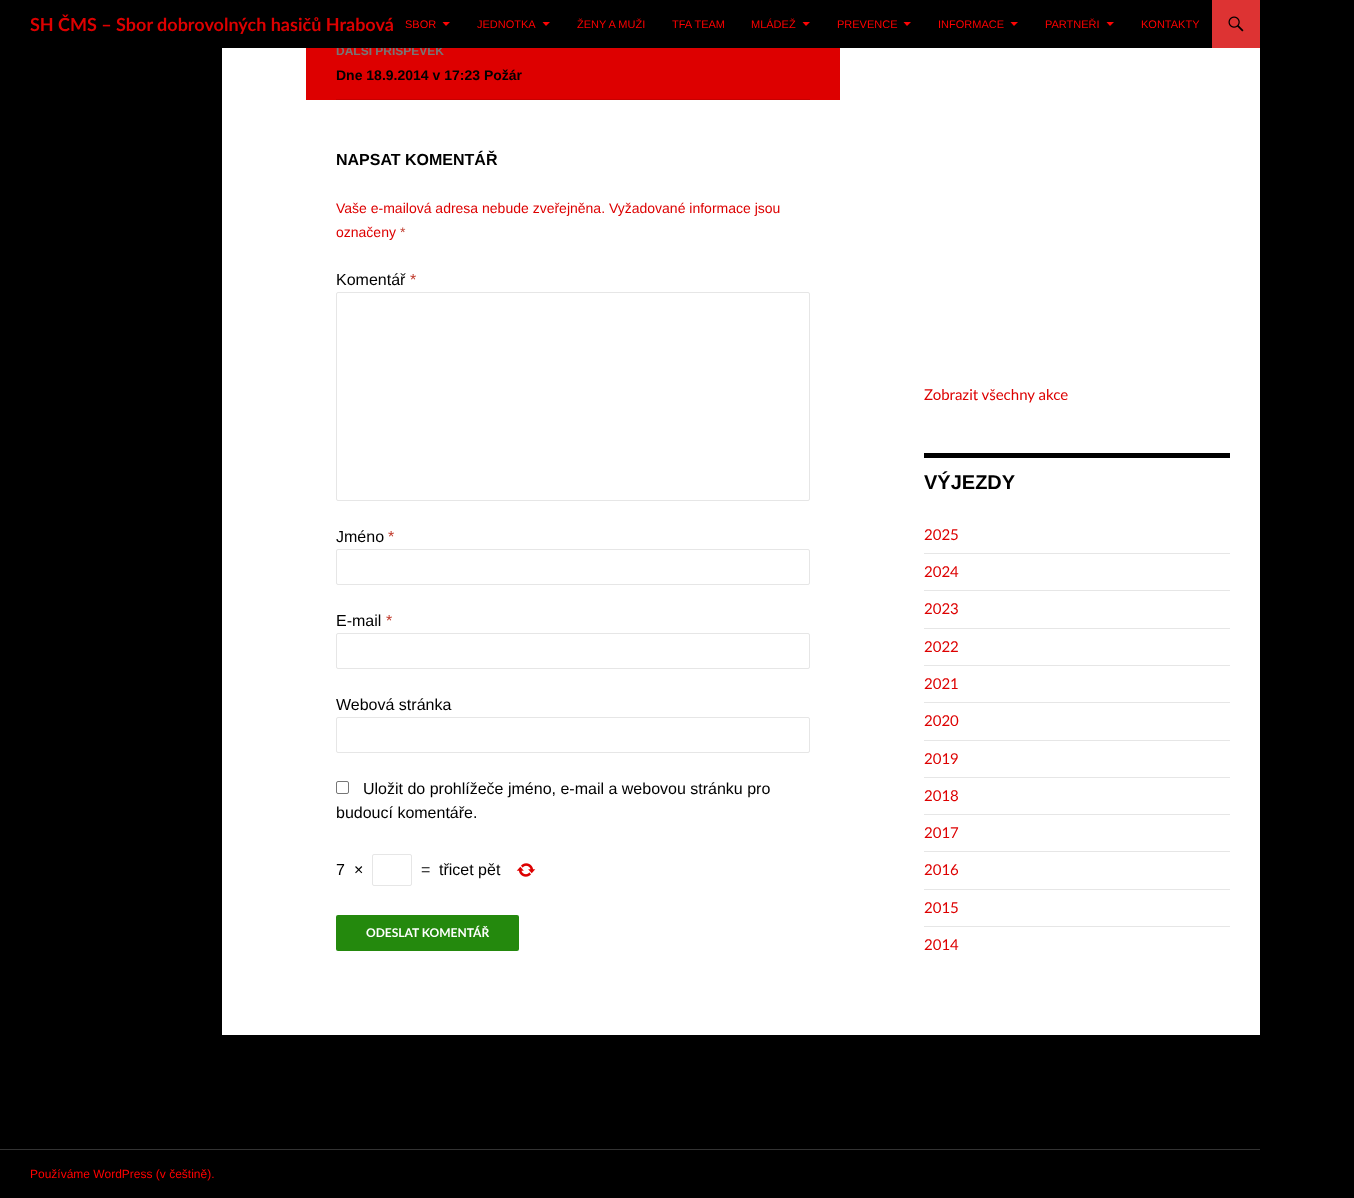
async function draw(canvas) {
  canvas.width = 1354;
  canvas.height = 1198;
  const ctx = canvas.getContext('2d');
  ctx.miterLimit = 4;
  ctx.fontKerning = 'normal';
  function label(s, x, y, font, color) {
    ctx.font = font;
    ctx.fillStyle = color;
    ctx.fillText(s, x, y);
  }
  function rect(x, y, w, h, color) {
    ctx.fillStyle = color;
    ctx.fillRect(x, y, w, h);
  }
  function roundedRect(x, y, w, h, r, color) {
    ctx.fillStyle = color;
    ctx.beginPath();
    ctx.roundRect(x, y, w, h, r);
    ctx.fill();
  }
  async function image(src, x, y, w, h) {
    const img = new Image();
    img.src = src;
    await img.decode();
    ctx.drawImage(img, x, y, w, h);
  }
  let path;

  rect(0, 0, 1354, 1198, '#000');
  rect(222, 48, 1038, 987, '#fff');
  rect(306, 48, 534, 52, '#d00');
  label('DALŠÍ PŘÍSPĚVEK', 336, 55, 'bold 12px Liberation Sans', '#767676');
  rect(336, 44, 108, 4, '#000');
  label('SH ČMS – Sbor dobrovolných hasičů Hrabová', 30, 31, 'bold 18px Lato', '#d00');
  label('SBOR', 405, 28, '11px Liberation Sans', '#f00');
  ctx.fillStyle = '#ff0505';
  path = new Path2D('M442.5 22L446 26L450 22Z');
  ctx.fill(path);
  label('JEDNOTKA', 477, 28, '11px Liberation Sans', '#f00');
  ctx.fillStyle = '#ff0505';
  path = new Path2D('M542.5 22L546 26L550 22Z');
  ctx.fill(path);
  label('ŽENY A MUŽI', 577, 28, '11px Liberation Sans', '#f00');
  label('TFA TEAM', 672, 28, '11px Liberation Sans', '#f00');
  label('MLÁDEŽ', 751, 28, '11px Liberation Sans', '#f00');
  ctx.fillStyle = '#ff0505';
  path = new Path2D('M802.5 22L806 26L810 22Z');
  ctx.fill(path);
  label('PREVENCE', 837, 28, '11px Liberation Sans', '#f00');
  ctx.fillStyle = '#ff0505';
  path = new Path2D('M903.5 22L907 26L911 22Z');
  ctx.fill(path);
  label('INFORMACE', 938, 28, '11px Liberation Sans', '#f00');
  ctx.fillStyle = '#ff0505';
  path = new Path2D('M1010.5 22L1014 26L1018 22Z');
  ctx.fill(path);
  label('PARTNEŘI', 1045, 28, '11px Liberation Sans', '#f00');
  ctx.fillStyle = '#ff0505';
  path = new Path2D('M1106.5 22L1110 26L1114 22Z');
  ctx.fill(path);
  label('KONTAKTY', 1141, 28, '11px Liberation Sans', '#f00');
  rect(1212, 0, 48, 48, '#d33');
  await image('assets/img1.png', 1228, 16, 16, 16);
  rect(336, 99, 474, 1, '#c70000');
  label('Dne 18.9.2014 v 17:23 Požár', 336, 80, 'bold 14px Liberation Sans', '#000');
  label('NAPSAT KOMENTÁŘ', 336, 165, 'bold 16px Liberation Sans', '#000');
  label('Vaše e-mailová adresa nebude zveřejněna. Vyžadované informace jsou', 336, 213, '14px Liberation Sans', '#d00');
  label('označeny', 336, 237, '14px Liberation Sans', '#d00');
  label('*', 400, 237, '14px Liberation Sans', '#c0392b');
  label('Komentář', 336, 285, '16px Liberation Sans', '#000');
  label('*', 410, 285, '16px Liberation Sans', '#c0392b');
  ctx.beginPath();
  ctx.roundRect(336.5, 292.5, 473, 208, 1.5);
  ctx.strokeStyle = '#e6e6e6';
  ctx.stroke();
  label('Jméno', 336, 542, '16px Liberation Sans', '#000');
  label('*', 388, 542, '16px Liberation Sans', '#c0392b');
  ctx.beginPath();
  ctx.roundRect(336.5, 549.5, 473, 35, 1.5);
  ctx.stroke();
  label('E-mail', 336, 626, '16px Liberation Sans', '#000');
  label('*', 386, 626, '16px Liberation Sans', '#c0392b');
  ctx.beginPath();
  ctx.roundRect(336.5, 633.5, 473, 35, 1.5);
  ctx.stroke();
  label('Webová stránka', 336, 710, '16px Liberation Sans', '#000');
  ctx.beginPath();
  ctx.roundRect(336.5, 717.5, 473, 35, 1.5);
  ctx.stroke();
  ctx.beginPath();
  ctx.roundRect(336.5, 781.5, 12, 12, 1.5);
  ctx.strokeStyle = '#767676';
  ctx.stroke();
  label('Uložit do prohlížeče jméno, e-mail a webovou stránku pro', 363, 794, '16px Liberation Sans', '#000');
  label('budoucí komentáře.', 336, 818, '16px Liberation Sans', '#000');
  label('7', 336, 875, '16px Liberation Sans', '#000');
  label('×', 354, 875, '16px Liberation Sans', '#000');
  ctx.beginPath();
  ctx.roundRect(372.5, 854.5, 39, 31, 1.5);
  ctx.strokeStyle = '#e6e6e6';
  ctx.stroke();
  label('=', 421, 875, '16px Liberation Sans', '#000');
  label('třicet pět', 439, 875, '16px Liberation Sans', '#000');
  await image('assets/img2.png', 516, 863, 20, 14);
  roundedRect(336, 915, 183, 36, 2, '#24890d');
  label('ODESLAT KOMENTÁŘ', 366, 937, 'bold 12px Lato', '#fff');
  label('Zobrazit všechny akce', 924, 400, '15px Lato', '#d00');
  rect(924, 453, 306, 5, '#000');
  label('VÝJEZDY', 924, 489, 'bold 20px Liberation Sans', '#000');
  label('2025', 924, 540, '15px Lato', '#d00');
  rect(924, 553, 306, 1, '#e6e6e6');
  label('2024', 924, 577, '15px Lato', '#d00');
  rect(924, 590, 306, 1, '#e6e6e6');
  label('2023', 924, 614, '15px Lato', '#d00');
  rect(924, 628, 306, 1, '#e6e6e6');
  label('2022', 924, 652, '15px Lato', '#d00');
  rect(924, 665, 306, 1, '#e6e6e6');
  label('2021', 924, 689, '15px Lato', '#d00');
  rect(924, 702, 306, 1, '#e6e6e6');
  label('2020', 924, 726, '15px Lato', '#d00');
  rect(924, 740, 306, 1, '#e6e6e6');
  label('2019', 924, 764, '15px Lato', '#d00');
  rect(924, 777, 306, 1, '#e6e6e6');
  label('2018', 924, 801, '15px Lato', '#d00');
  rect(924, 814, 306, 1, '#e6e6e6');
  label('2017', 924, 838, '15px Lato', '#d00');
  rect(924, 851, 306, 1, '#e6e6e6');
  label('2016', 924, 875, '15px Lato', '#d00');
  rect(924, 889, 306, 1, '#e6e6e6');
  label('2015', 924, 913, '15px Lato', '#d00');
  rect(924, 926, 306, 1, '#e6e6e6');
  label('2014', 924, 950, '15px Lato', '#d00');
  rect(0, 1149, 1260, 1, '#333');
  label('Používáme WordPress (v češtině).', 30, 1178, '12px Liberation Sans', '#f00');
}

draw(document.querySelector('canvas'));
